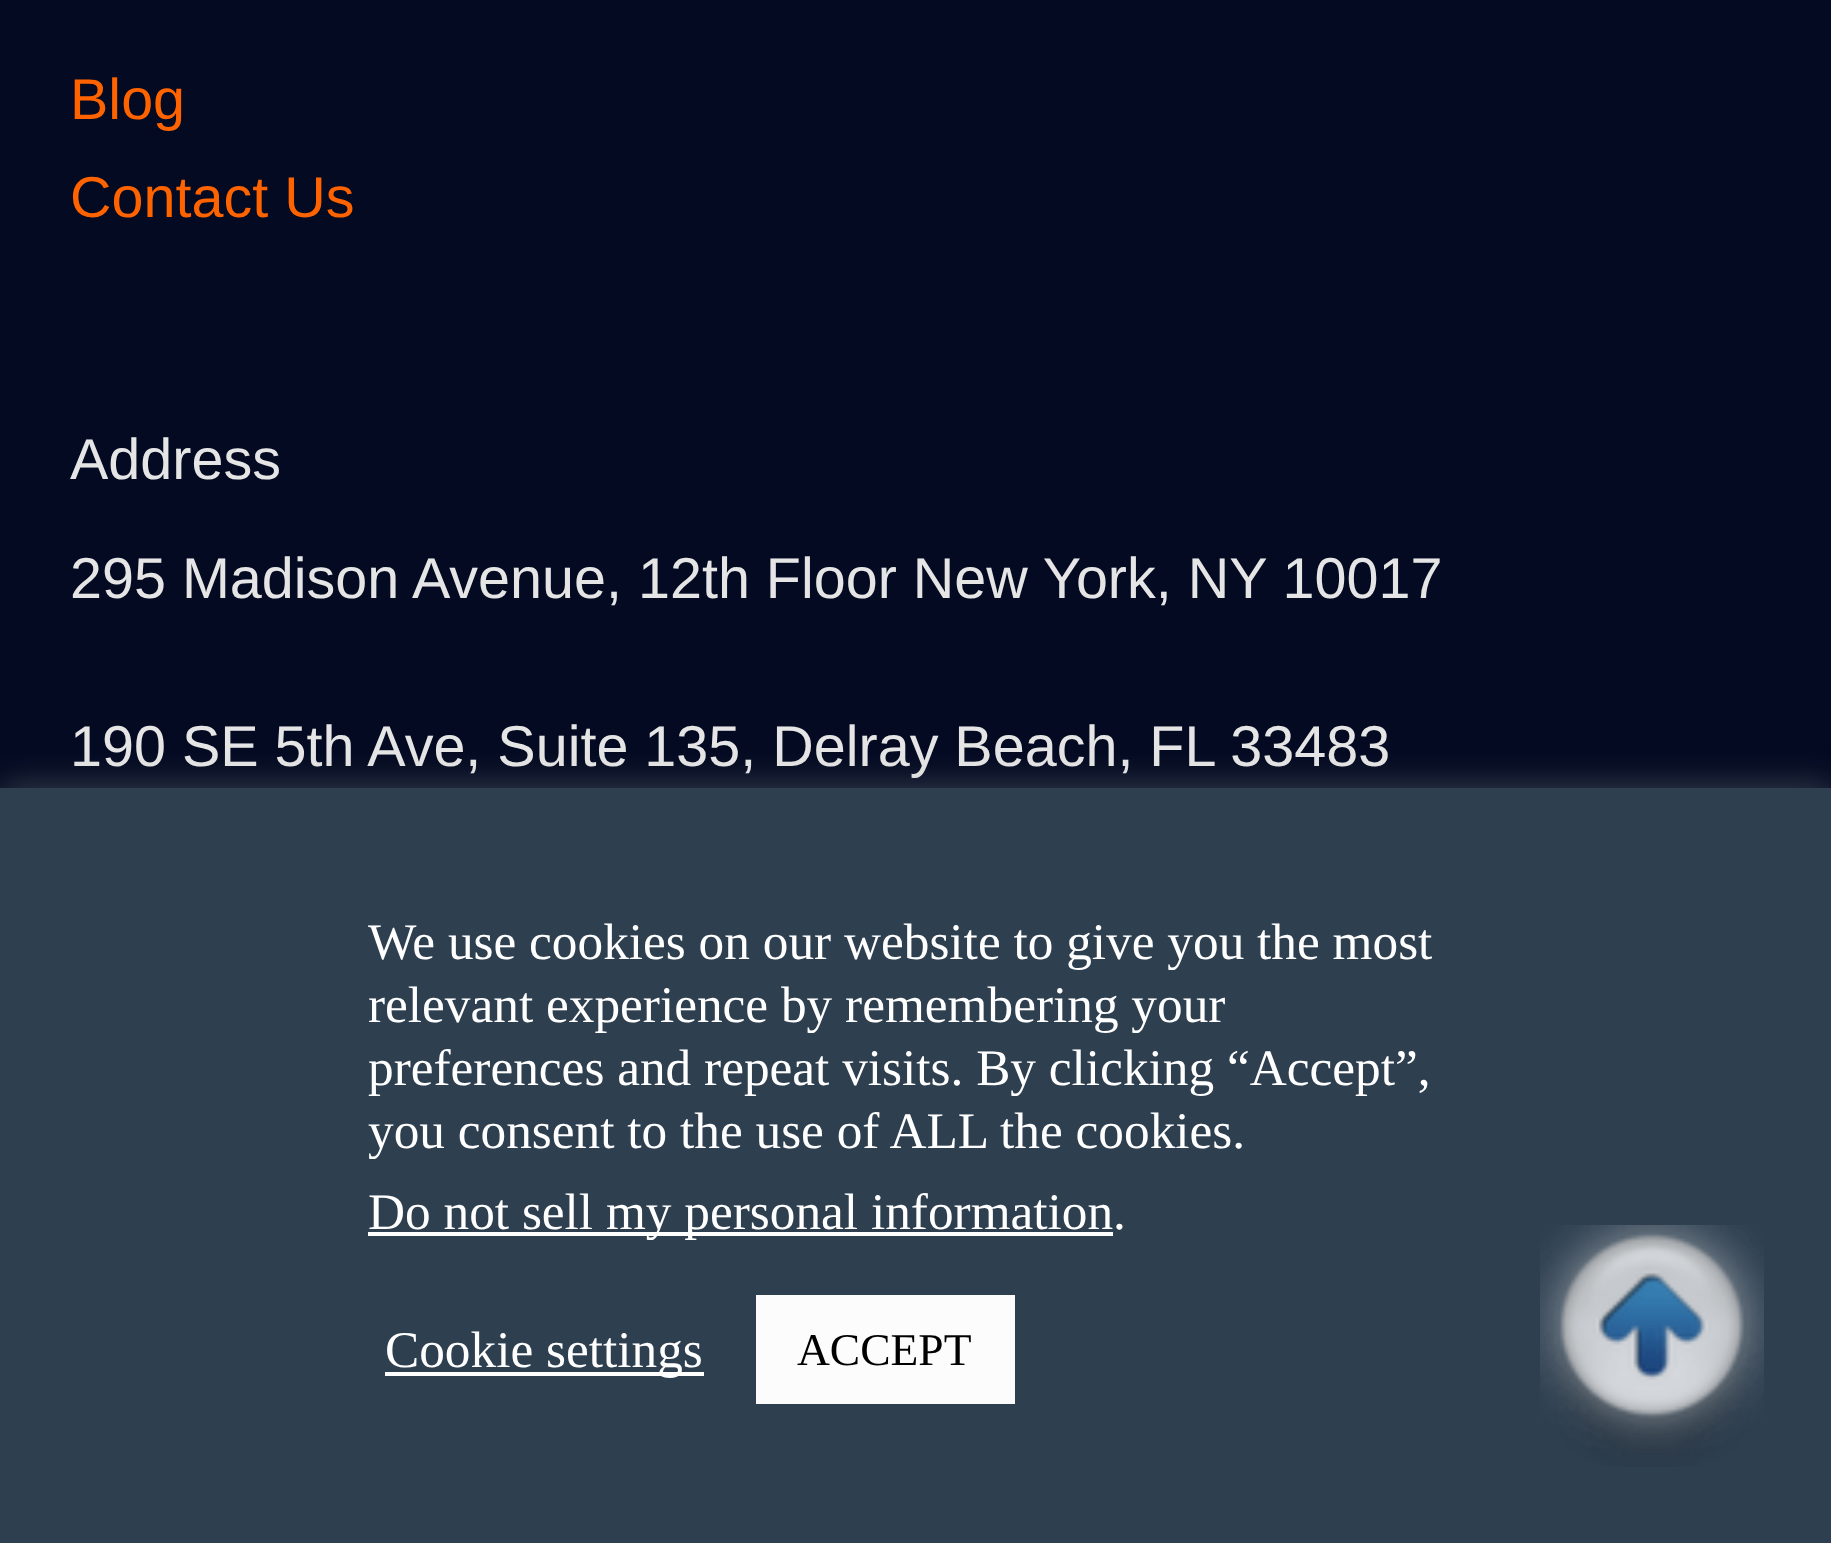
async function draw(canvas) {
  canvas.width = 1831;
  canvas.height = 1543;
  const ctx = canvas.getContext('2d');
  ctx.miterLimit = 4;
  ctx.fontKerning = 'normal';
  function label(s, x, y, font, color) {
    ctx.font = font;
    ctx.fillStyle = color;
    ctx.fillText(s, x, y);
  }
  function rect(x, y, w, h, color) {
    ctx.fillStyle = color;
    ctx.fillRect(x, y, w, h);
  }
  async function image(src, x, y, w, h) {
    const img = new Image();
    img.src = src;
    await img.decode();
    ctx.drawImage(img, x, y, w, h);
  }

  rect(0, 0, 1831, 1543, '#030a21');
  label('Blog', 70, 119, '57.5px Liberation Sans', '#ff6300');
  label('Contact Us', 70, 217, '57.5px Liberation Sans', '#ff6300');
  label('Address', 70, 479, '57.5px Liberation Sans', '#e5e5e5');
  label('295 Madison Avenue, 12th Floor New York, NY 10017', 70, 598, '57.5px Liberation Sans', '#e5e5e5');
  label('190 SE 5th Ave, Suite 135, Delray Beach, FL 33483', 70, 766, '57.5px Liberation Sans', '#e5e5e5');
  ctx.fillStyle = '#acabab4d';
  ctx.filter = 'blur(17.5px)';
  ctx.beginPath();
  ctx.rect(0, 784, 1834, 756);
  ctx.fill();
  ctx.filter = 'none';
  rect(0, 788, 1831, 755, '#2e3f50');
  label('We use cookies on our website to give you the most', 368, 959, '51.3px Liberation Serif', '#fff');
  label('relevant experience by remembering your', 368, 1022, '51.3px Liberation Serif', '#fff');
  label('preferences and repeat visits. By clicking “Accept”,', 368, 1085, '51.3px Liberation Serif', '#fff');
  label('you consent to the use of ALL the cookies.', 368, 1148, '51.3px Liberation Serif', '#fff');
  rect(368, 1232, 745, 4, '#fff');
  label('Do not sell my personal information', 368, 1229, '51.3px Liberation Serif', '#fff');
  label('.', 1113, 1229, '51.3px Liberation Serif', '#fff');
  rect(385, 1372, 319, 4, '#fff');
  label('Cookie settings', 385, 1367, '51.3px Liberation Serif', '#fff');
  rect(756, 1295, 259, 109, '#fcfcfc');
  label('ACCEPT', 797, 1365, '45.5px Liberation Serif', '#000');
  await image('assets/img1.png', 1540, 1225, 224, 242);
}

draw(document.querySelector('canvas'));
